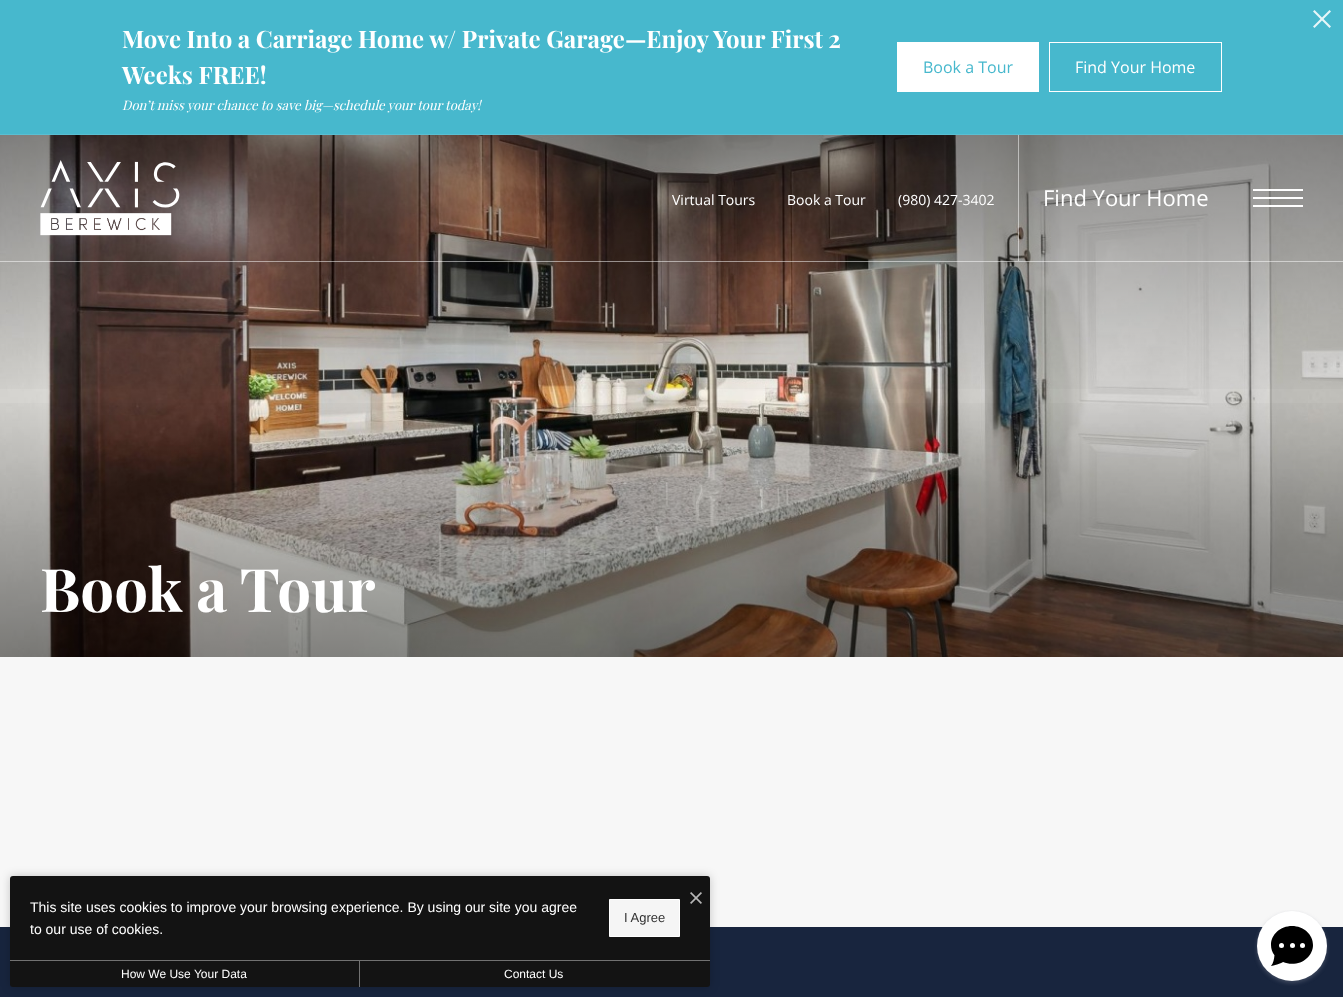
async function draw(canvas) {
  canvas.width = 1343;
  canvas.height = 997;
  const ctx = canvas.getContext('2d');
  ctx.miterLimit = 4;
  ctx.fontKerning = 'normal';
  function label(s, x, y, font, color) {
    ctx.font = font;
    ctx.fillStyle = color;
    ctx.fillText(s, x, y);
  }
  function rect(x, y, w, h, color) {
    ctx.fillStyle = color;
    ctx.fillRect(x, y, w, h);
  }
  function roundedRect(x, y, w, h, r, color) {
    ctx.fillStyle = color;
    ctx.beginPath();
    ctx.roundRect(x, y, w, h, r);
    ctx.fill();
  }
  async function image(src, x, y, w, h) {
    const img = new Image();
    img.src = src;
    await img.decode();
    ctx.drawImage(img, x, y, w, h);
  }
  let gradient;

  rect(0, 0, 1343, 997, '#f7f7f7');
  rect(0, 0, 1343, 134, '#47b8cd');
  rect(0, 134, 1343, 1, '#59bfd2');
  await image('assets/img1.png', 1313, 10, 18, 18);
  label('Move Into a Carriage Home w/ Private Garage—Enjoy Your First 2', 122, 48, 'bold 24px Playfair Display', '#fff');
  label('Weeks FREE!', 122, 84, 'bold 24px Playfair Display', '#fff');
  label('Don’t miss your chance to save big—schedule your tour today!', 122, 110, 'italic 13px Playfair Display', '#fff');
  rect(897, 42, 142, 50, '#fff');
  label('Book a Tour', 923, 73, '16px Open Sans', '#47b8cd');
  ctx.strokeStyle = '#fff';
  ctx.strokeRect(1049.5, 42.5, 172, 49);
  label('Find Your Home', 1075, 73, '16px Open Sans', '#fff');
  await image('assets/img3.png', 0, 135, 48, 522);
  await image('assets/img4.png', 48, 135, 1295, 522);
  gradient = ctx.createLinearGradient(672, 135, 672, 403);
  gradient.addColorStop(0, '#00000066');
  gradient.addColorStop(1, '#00000000');
  ctx.fillStyle = gradient;
  ctx.fillRect(0, 135, 1343, 254);
  rect(0, 261, 1343, 1, '#ffffff80');
  await image('assets/img2.png', 40, 160, 140, 76);
  label('Virtual Tours', 672, 205, '14px Open Sans', '#fff');
  label('Book a Tour', 787, 205, '14px Open Sans', '#fff');
  label('(980) 427-3402', 898, 205, '14px Open Sans', '#fff');
  rect(1018, 135, 1, 126, '#ffffff80');
  label('Find Your Home', 1043, 206, '22px Open Sans', '#fff');
  rect(1253, 189, 50, 2, '#fff');
  rect(1253, 197, 50, 2, '#fff');
  rect(1253, 205, 50, 2, '#fff');
  gradient = ctx.createLinearGradient(672, 389, 672, 657);
  gradient.addColorStop(0, '#00000000');
  gradient.addColorStop(1, '#00000066');
  ctx.fillStyle = gradient;
  ctx.fillRect(0, 403, 1343, 254);
  label('Book a Tour', 40, 612, 'bold 60px Playfair Display', '#fff');
  rect(0, 927, 1343, 70, '#18253e');
  ctx.fillStyle = '#00000033';
  ctx.filter = 'blur(5px)';
  ctx.beginPath();
  ctx.roundRect(10, 876, 700, 111, 3);
  ctx.fill();
  ctx.filter = 'none';
  roundedRect(10, 876, 700, 111, 3, '#131313');
  await image('assets/img5.png', 690, 892, 12, 12);
  label('This site uses cookies to improve your browsing experience. By using our site you agree', 30, 912, '14px Liberation Sans', '#fff');
  label('to our use of cookies.', 30, 934, '14px Liberation Sans', '#fff');
  ctx.fillStyle = '#f5f5f5';
  ctx.beginPath();
  ctx.rect(609.5, 899.5, 70, 37);
  ctx.fill();
  ctx.stroke();
  label('I Agree', 624, 922, '13px Liberation Sans', '#333');
  rect(10, 960, 700, 1, '#717171');
  rect(359, 961, 1, 26, '#717171');
  label('How We Use Your Data', 121, 978, '12px Liberation Sans', '#fff');
  label('Contact Us', 504, 978, '12px Liberation Sans', '#fff');
  await image('assets/img6.png', 1254, 910, 76, 76);
}

draw(document.querySelector('canvas'));
